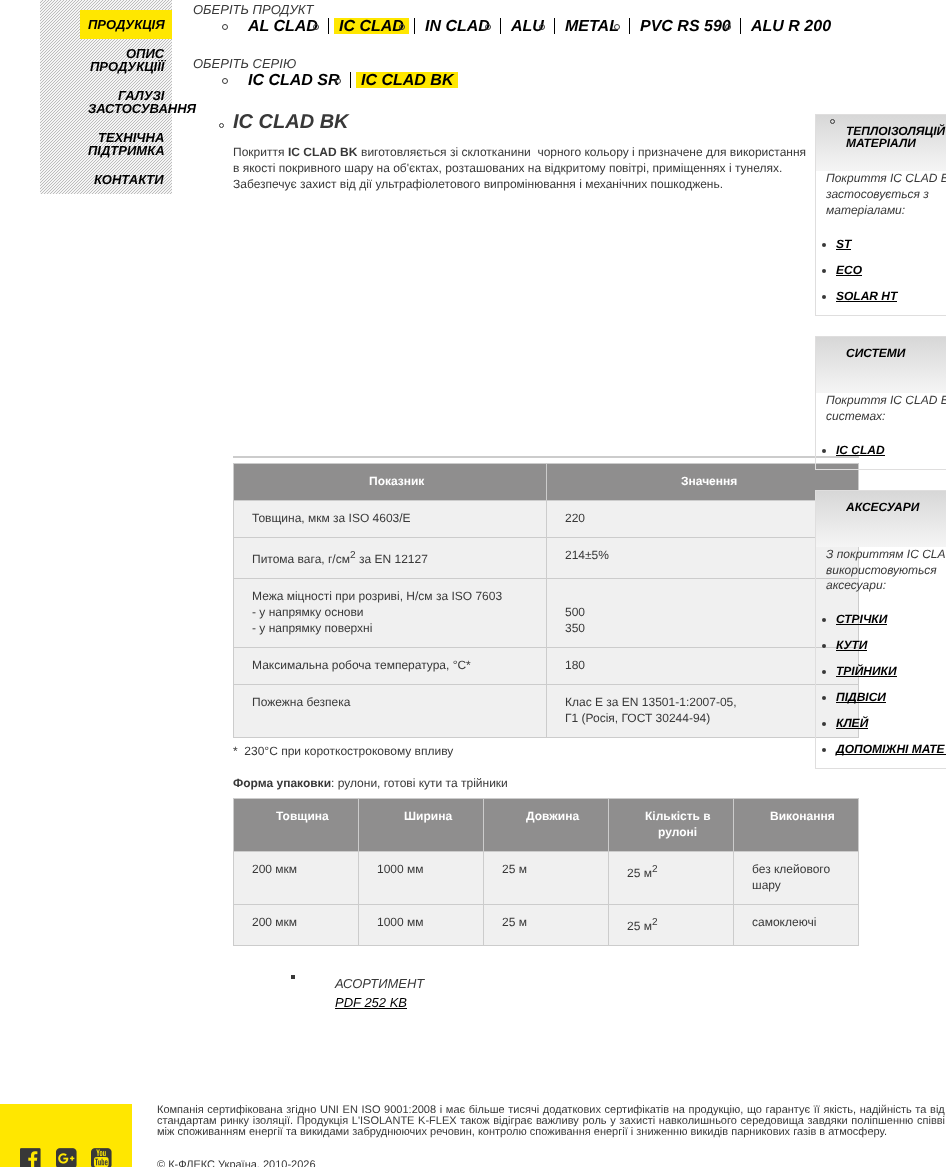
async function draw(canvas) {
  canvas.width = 946;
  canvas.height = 1167;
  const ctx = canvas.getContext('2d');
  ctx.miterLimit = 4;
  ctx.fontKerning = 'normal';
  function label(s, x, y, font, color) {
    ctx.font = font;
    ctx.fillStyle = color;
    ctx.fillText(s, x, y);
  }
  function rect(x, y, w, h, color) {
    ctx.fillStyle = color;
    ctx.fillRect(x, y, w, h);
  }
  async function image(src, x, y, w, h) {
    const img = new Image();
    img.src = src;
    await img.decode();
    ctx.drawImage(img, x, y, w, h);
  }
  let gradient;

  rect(0, 0, 946, 1167, '#fff');
  await image('assets/img1.png', 40, 0, 132, 194);
  rect(80, 10, 92, 29, '#ffe700');
  label('ПРОДУКЦІЯ', 88, 29, 'italic bold 13px Liberation Sans', '#000');
  label('ОПИС', 126, 58, 'italic bold 13px Liberation Sans', '#000');
  label('ПРОДУКЦІЇЇ', 90, 71, 'italic bold 13px Liberation Sans', '#000');
  label('ГАЛУЗІ', 118, 100, 'italic bold 13px Liberation Sans', '#000');
  label('ЗАСТОСУВАННЯ', 88, 113, 'italic bold 13px Liberation Sans', '#000');
  label('ТЕХНІЧНА', 98, 142, 'italic bold 13px Liberation Sans', '#000');
  label('ПІДТРИМКА', 88, 155, 'italic bold 13px Liberation Sans', '#000');
  label('КОНТАКТИ', 94, 184, 'italic bold 13px Liberation Sans', '#000');
  label('ОБЕРІТЬ ПРОДУКТ', 193, 14, 'italic 13px Liberation Sans', '#383838');
  rect(328, 18, 1, 16, '#000');
  ctx.beginPath();
  ctx.arc(225, 27, 2.5, 0, 2 * Math.PI);
  ctx.strokeStyle = '#383838';
  ctx.stroke();
  label('AL CLAD', 248, 31, 'italic bold 16px Liberation Sans', '#000');
  rect(414, 18, 1, 16, '#000');
  ctx.beginPath();
  ctx.arc(316, 27, 2.5, 0, 2 * Math.PI);
  ctx.stroke();
  rect(334, 18, 75, 16, '#ffe700');
  label('IC CLAD', 339, 31, 'italic bold 16px Liberation Sans', '#000');
  rect(500, 18, 1, 16, '#000');
  ctx.beginPath();
  ctx.arc(402, 27, 2.5, 0, 2 * Math.PI);
  ctx.stroke();
  label('IN CLAD', 425, 31, 'italic bold 16px Liberation Sans', '#000');
  rect(554, 18, 1, 16, '#000');
  ctx.beginPath();
  ctx.arc(488, 27, 2.5, 0, 2 * Math.PI);
  ctx.stroke();
  label('ALU', 511, 31, 'italic bold 16px Liberation Sans', '#000');
  rect(629, 18, 1, 16, '#000');
  ctx.beginPath();
  ctx.arc(542, 27, 2.5, 0, 2 * Math.PI);
  ctx.stroke();
  label('METAL', 565, 31, 'italic bold 16px Liberation Sans', '#000');
  rect(740, 18, 1, 16, '#000');
  ctx.beginPath();
  ctx.arc(617, 27, 2.5, 0, 2 * Math.PI);
  ctx.stroke();
  label('PVC RS 590', 640, 31, 'italic bold 16px Liberation Sans', '#000');
  ctx.beginPath();
  ctx.arc(728, 27, 2.5, 0, 2 * Math.PI);
  ctx.stroke();
  label('ALU R 200', 751, 31, 'italic bold 16px Liberation Sans', '#000');
  label('ОБЕРІТЬ СЕРІЮ', 193, 68, 'italic 13px Liberation Sans', '#383838');
  rect(350, 72, 1, 16, '#000');
  ctx.beginPath();
  ctx.arc(225, 81, 2.5, 0, 2 * Math.PI);
  ctx.stroke();
  label('IC CLAD SR', 248, 85, 'italic bold 16px Liberation Sans', '#000');
  ctx.beginPath();
  ctx.arc(338, 81, 2.5, 0, 2 * Math.PI);
  ctx.stroke();
  rect(356, 72, 102, 16, '#ffe700');
  label('IC CLAD BK', 361, 85, 'italic bold 16px Liberation Sans', '#000');
  ctx.beginPath();
  ctx.arc(221.5, 125.5, 2, 0, 2 * Math.PI);
  ctx.stroke();
  label('IC CLAD BK', 233, 128, 'italic bold 20px Liberation Sans', '#383838');
  label('Покриття', 233, 156, '12px Liberation Sans', '#383838');
  label('IC CLAD BK', 288, 156, 'bold 12px Liberation Sans', '#383838');
  label('виготовляється зі склотканини  чорного кольору і призначене для використання', 361, 156, '12px Liberation Sans', '#383838');
  label('в якості покривного шару на об\'єктах, розташованих на відкритому повітрі, приміщеннях і тунелях.', 233, 172, '12px Liberation Sans', '#383838');
  label('Забезпечує захист від дії ультрафіолетового випромінювання і механічних пошкоджень.', 233, 188, '12px Liberation Sans', '#383838');
  rect(233, 456, 626, 2, '#ccc');
  rect(234, 501, 624, 236, '#f0f0f0');
  rect(233, 463, 626, 1, '#ccc');
  rect(858, 463, 1, 275, '#ccc');
  rect(233, 737, 626, 1, '#ccc');
  rect(233, 463, 1, 275, '#ccc');
  rect(234, 464, 624, 36, '#8f8e8e');
  label('Показник', 369, 485, 'bold 12px Liberation Sans', '#fff');
  rect(546, 500, 269, 1, '#ccc');
  rect(546, 537, 269, 1, '#ccc');
  rect(546, 578, 313, 1, '#ccc');
  rect(546, 647, 313, 1, '#ccc');
  rect(546, 684, 313, 1, '#ccc');
  rect(546, 684, 1, 54, '#ccc');
  rect(233, 684, 314, 1, '#ccc');
  rect(546, 647, 1, 38, '#ccc');
  rect(233, 647, 314, 1, '#ccc');
  rect(546, 578, 1, 70, '#ccc');
  rect(233, 578, 314, 1, '#ccc');
  rect(546, 537, 1, 42, '#ccc');
  rect(233, 537, 314, 1, '#ccc');
  rect(546, 500, 1, 38, '#ccc');
  rect(233, 500, 314, 1, '#ccc');
  rect(546, 463, 1, 38, '#ccc');
  label('Значення', 681, 485, 'bold 12px Liberation Sans', '#fff');
  label('Товщина, мкм за ISO 4603/Е', 252, 522, '12px Liberation Sans', '#383838');
  label('220', 565, 522, '12px Liberation Sans', '#383838');
  label('Питома вага, г/см', 252, 563, '12px Liberation Sans', '#383838');
  label('2', 350, 558, '10px Liberation Sans', '#383838');
  label('за EN 12127', 359, 563, '12px Liberation Sans', '#383838');
  label('214±5%', 565, 559, '12px Liberation Sans', '#383838');
  label('Межа міцності при розриві, Н/см за ISO 7603', 252, 600, '12px Liberation Sans', '#383838');
  label('- у напрямку основи', 252, 616, '12px Liberation Sans', '#383838');
  label('- у напрямку поверхні', 252, 632, '12px Liberation Sans', '#383838');
  label('500', 565, 616, '12px Liberation Sans', '#383838');
  label('350', 565, 632, '12px Liberation Sans', '#383838');
  label('Максимальна робоча температура, °С*', 252, 669, '12px Liberation Sans', '#383838');
  label('180', 565, 669, '12px Liberation Sans', '#383838');
  label('Пожежна безпека', 252, 706, '12px Liberation Sans', '#383838');
  label('Клас E за EN 13501-1:2007-05,', 565, 706, '12px Liberation Sans', '#383838');
  label('Г1 (Росія, ГОСТ 30244-94)', 565, 722, '12px Liberation Sans', '#383838');
  label('*  230°С при короткостроковому впливу', 233, 755, '12px Liberation Sans', '#383838');
  label('Форма упаковки', 233, 787, 'bold 12px Liberation Sans', '#383838');
  label(': рулони, готові кути та трійники', 331, 787, '12px Liberation Sans', '#383838');
  rect(233, 798, 626, 1, '#ccc');
  rect(858, 798, 1, 148, '#ccc');
  rect(233, 945, 626, 1, '#ccc');
  rect(233, 798, 1, 148, '#ccc');
  rect(234, 799, 124, 52, '#8f8e8e');
  label('Товщина', 276, 820, 'bold 12px Liberation Sans', '#fff');
  rect(359, 799, 124, 52, '#8f8e8e');
  rect(733, 851, 126, 1, '#ccc');
  rect(733, 904, 126, 1, '#ccc');
  rect(733, 904, 1, 42, '#ccc');
  rect(608, 904, 126, 1, '#ccc');
  rect(733, 851, 1, 54, '#ccc');
  rect(608, 851, 126, 1, '#ccc');
  rect(608, 904, 1, 42, '#ccc');
  rect(483, 904, 126, 1, '#ccc');
  rect(608, 851, 1, 54, '#ccc');
  rect(483, 851, 126, 1, '#ccc');
  rect(483, 904, 1, 42, '#ccc');
  rect(358, 904, 126, 1, '#ccc');
  rect(483, 851, 1, 54, '#ccc');
  rect(358, 851, 126, 1, '#ccc');
  rect(358, 904, 1, 42, '#ccc');
  rect(233, 904, 126, 1, '#ccc');
  rect(358, 851, 1, 54, '#ccc');
  rect(233, 851, 126, 1, '#ccc');
  rect(358, 798, 1, 54, '#ccc');
  label('Ширина', 404, 820, 'bold 12px Liberation Sans', '#fff');
  rect(484, 799, 124, 52, '#8f8e8e');
  rect(483, 798, 1, 54, '#ccc');
  label('Довжина', 526, 820, 'bold 12px Liberation Sans', '#fff');
  rect(609, 799, 124, 52, '#8f8e8e');
  rect(608, 798, 1, 54, '#ccc');
  label('Кількість в', 645, 820, 'bold 12px Liberation Sans', '#fff');
  label('рулоні', 658, 836, 'bold 12px Liberation Sans', '#fff');
  rect(734, 799, 124, 52, '#8f8e8e');
  rect(733, 798, 1, 54, '#ccc');
  label('Виконання', 770, 820, 'bold 12px Liberation Sans', '#fff');
  rect(234, 852, 124, 52, '#f0f0f0');
  label('200 мкм', 252, 873, '12px Liberation Sans', '#383838');
  rect(359, 852, 124, 52, '#f0f0f0');
  label('1000 мм', 377, 873, '12px Liberation Sans', '#383838');
  rect(484, 852, 124, 52, '#f0f0f0');
  label('25 м', 502, 873, '12px Liberation Sans', '#383838');
  rect(609, 852, 124, 52, '#f0f0f0');
  label('25 м', 627, 877, '12px Liberation Sans', '#383838');
  label('2', 652, 872, '10px Liberation Sans', '#383838');
  rect(734, 852, 124, 52, '#f0f0f0');
  label('без клейового', 752, 873, '12px Liberation Sans', '#383838');
  label('шару', 752, 889, '12px Liberation Sans', '#383838');
  rect(234, 905, 124, 40, '#f0f0f0');
  label('200 мкм', 252, 926, '12px Liberation Sans', '#383838');
  rect(359, 905, 124, 40, '#f0f0f0');
  label('1000 мм', 377, 926, '12px Liberation Sans', '#383838');
  rect(484, 905, 124, 40, '#f0f0f0');
  label('25 м', 502, 926, '12px Liberation Sans', '#383838');
  rect(609, 905, 124, 40, '#f0f0f0');
  label('25 м', 627, 930, '12px Liberation Sans', '#383838');
  label('2', 652, 925, '10px Liberation Sans', '#383838');
  rect(734, 905, 124, 40, '#f0f0f0');
  label('самоклеючі', 752, 926, '12px Liberation Sans', '#383838');
  rect(291, 975, 4, 4, '#383838');
  label('АСОРТИМЕНТ', 335, 988, 'italic 13px Liberation Sans', '#383838');
  label('PDF 252 KB', 335, 1007, 'italic 13px Liberation Sans', '#000');
  rect(335, 1008, 72, 1, '#000');
  ctx.strokeStyle = '#dfdede';
  ctx.strokeRect(815.5, 114.5, 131, 201);
  gradient = ctx.createLinearGradient(816, 115, 816, 171);
  gradient.addColorStop(0, '#d7d7d7');
  gradient.addColorStop(1, '#f5f5f5');
  ctx.fillStyle = gradient;
  ctx.fillRect(816, 115, 130, 56);
  ctx.beginPath();
  ctx.arc(832.5, 121.5, 2, 0, 2 * Math.PI);
  ctx.strokeStyle = '#383838';
  ctx.stroke();
  label('ТЕПЛОІЗОЛЯЦІЙ', 846, 135, 'italic bold 12px Liberation Sans', '#000');
  label('МАТЕРІАЛИ', 846, 147, 'italic bold 12px Liberation Sans', '#000');
  label('Покриття IC CLAD B', 826, 182, 'italic 12px Liberation Sans', '#383838');
  label('застосовується з', 826, 198, 'italic 12px Liberation Sans', '#383838');
  label('матеріалами:', 826, 214, 'italic 12px Liberation Sans', '#383838');
  ctx.beginPath();
  ctx.arc(824, 245, 2, 0, 2 * Math.PI);
  ctx.fill();
  label('ST', 836, 248, 'italic bold 12px Liberation Sans', '#000');
  rect(836, 249, 15, 1, '#000');
  ctx.fillStyle = '#383838';
  ctx.beginPath();
  ctx.arc(824, 271, 2, 0, 2 * Math.PI);
  ctx.fill();
  label('ECO', 836, 274, 'italic bold 12px Liberation Sans', '#000');
  rect(836, 275, 26, 1, '#000');
  ctx.fillStyle = '#383838';
  ctx.beginPath();
  ctx.arc(824, 297, 2, 0, 2 * Math.PI);
  ctx.fill();
  label('SOLAR HT', 836, 300, 'italic bold 12px Liberation Sans', '#000');
  rect(836, 301, 61, 1, '#000');
  ctx.strokeStyle = '#dfdede';
  ctx.strokeRect(815.5, 336.5, 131, 133);
  gradient = ctx.createLinearGradient(816, 337, 816, 393);
  gradient.addColorStop(0, '#d7d7d7');
  gradient.addColorStop(1, '#f5f5f5');
  ctx.fillStyle = gradient;
  ctx.fillRect(816, 337, 130, 56);
  label('СИСТЕМИ', 846, 357, 'italic bold 12px Liberation Sans', '#000');
  label('Покриття IC CLAD B', 826, 404, 'italic 12px Liberation Sans', '#383838');
  label('системах:', 826, 420, 'italic 12px Liberation Sans', '#383838');
  ctx.beginPath();
  ctx.arc(824, 451, 2, 0, 2 * Math.PI);
  ctx.fill();
  label('IC CLAD', 836, 454, 'italic bold 12px Liberation Sans', '#000');
  rect(836, 455, 49, 1, '#000');
  ctx.strokeRect(815.5, 490.5, 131, 278);
  gradient = ctx.createLinearGradient(816, 491, 816, 547);
  gradient.addColorStop(0, '#d7d7d7');
  gradient.addColorStop(1, '#f5f5f5');
  ctx.fillStyle = gradient;
  ctx.fillRect(816, 491, 130, 56);
  label('АКСЕСУАРИ', 846, 511, 'italic bold 12px Liberation Sans', '#000');
  label('З покриттям IC CLA', 826, 558, 'italic 12px Liberation Sans', '#383838');
  label('використовуються', 826, 574, 'italic 12px Liberation Sans', '#383838');
  label('аксесуари:', 826, 589, 'italic 12px Liberation Sans', '#383838');
  ctx.beginPath();
  ctx.arc(824, 620, 2, 0, 2 * Math.PI);
  ctx.fill();
  label('СТРІЧКИ', 836, 623, 'italic bold 12px Liberation Sans', '#000');
  rect(836, 624, 51, 1, '#000');
  ctx.fillStyle = '#383838';
  ctx.beginPath();
  ctx.arc(824, 646, 2, 0, 2 * Math.PI);
  ctx.fill();
  label('КУТИ', 836, 649, 'italic bold 12px Liberation Sans', '#000');
  rect(836, 650, 31, 1, '#000');
  ctx.fillStyle = '#383838';
  ctx.beginPath();
  ctx.arc(824, 672, 2, 0, 2 * Math.PI);
  ctx.fill();
  label('ТРІЙНИКИ', 836, 675, 'italic bold 12px Liberation Sans', '#000');
  rect(836, 676, 61, 1, '#000');
  ctx.fillStyle = '#383838';
  ctx.beginPath();
  ctx.arc(824, 698, 2, 0, 2 * Math.PI);
  ctx.fill();
  rect(836, 702, 50, 1, '#000');
  label('ПІДВІСИ', 836, 701, 'italic bold 12px Liberation Sans', '#000');
  ctx.fillStyle = '#383838';
  ctx.beginPath();
  ctx.arc(824, 724, 2, 0, 2 * Math.PI);
  ctx.fill();
  label('КЛЕЙ', 836, 727, 'italic bold 12px Liberation Sans', '#000');
  rect(836, 728, 32, 1, '#000');
  ctx.fillStyle = '#383838';
  ctx.beginPath();
  ctx.arc(824, 750, 2, 0, 2 * Math.PI);
  ctx.fill();
  rect(836, 754, 110, 1, '#000');
  label('ДОПОМІЖНІ МАТЕ', 836, 753, 'italic bold 12px Liberation Sans', '#000');
  rect(0, 1104, 132, 63, '#ffe700');
  await image('assets/img2.png', 20, 1148, 21, 19);
  await image('assets/img3.png', 56, 1148, 21, 19);
  await image('assets/img4.png', 91, 1148, 21, 19);
  ctx.wordSpacing = '0.6px';
  label('Компанія сертифікована згідно UNI EN ISO 9001:2008 і має більше тисячі додаткових сертифікатів на продукцію, що гарантує її якість, надійність та від', 157, 1113, '11px Liberation Sans', '#383838');
  label('стандартам ринку ізоляції. Продукція L\'ISOLANTE K-FLEX також відіграє важливу роль у захисті навколишнього середовища завдяки поліпшенню співві', 157, 1124, '11px Liberation Sans', '#383838');
  ctx.wordSpacing = '0px';
  label('між споживанням енергії та викидами забруднюючих речовин, контролю споживання енергії і зниженню викидів парникових газів в атмосферу.', 157, 1135, '11px Liberation Sans', '#383838');
  label('© К-ФЛЕКС Україна, 2010-2026', 157, 1168, '11px Liberation Sans', '#383838');
}

draw(document.querySelector('canvas'));
